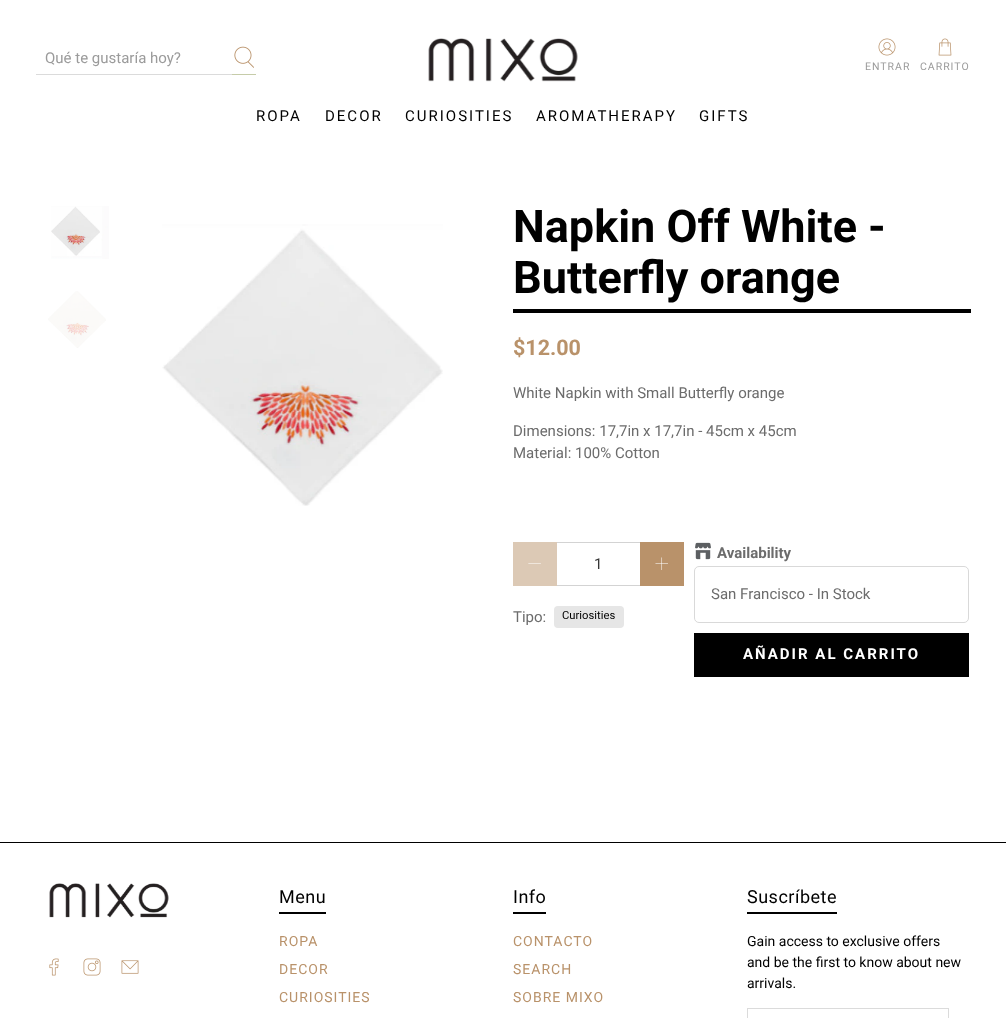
async function draw(canvas) {
  canvas.width = 1006;
  canvas.height = 1018;
  const ctx = canvas.getContext('2d');
  ctx.miterLimit = 4;
  ctx.fontKerning = 'normal';
  function label(s, x, y, font, color) {
    ctx.font = font;
    ctx.fillStyle = color;
    ctx.fillText(s, x, y);
  }
  function rect(x, y, w, h, color) {
    ctx.fillStyle = color;
    ctx.fillRect(x, y, w, h);
  }
  function roundedRect(x, y, w, h, r, color) {
    ctx.fillStyle = color;
    ctx.beginPath();
    ctx.roundRect(x, y, w, h, r);
    ctx.fill();
  }
  async function image(src, x, y, w, h) {
    const img = new Image();
    img.src = src;
    await img.decode();
    ctx.drawImage(img, x, y, w, h);
  }

  rect(0, 0, 1006, 1018, '#fff');
  rect(36, 74, 197, 1, '#dbdbdb');
  label('Qué te gustaría hoy?', 45, 63, '15px Roboto', '#9b9b9b');
  rect(232, 74, 24, 1, '#c6cca9');
  await image('assets/img1.png', 234, 46, 20, 22);
  await image('assets/img2.png', 428, 38, 150, 44);
  await image('assets/img3.png', 878, 38, 18, 18);
  ctx.letterSpacing = '1px';
  label('ENTRAR', 865, 70, '10.5px Roboto', '#9b9b9b');
  await image('assets/img4.png', 938, 38, 14, 18);
  label('CARRITO', 920, 70, '10.5px Roboto', '#9b9b9b');
  ctx.letterSpacing = '2px';
  label('ROPA', 256, 121, '15px Roboto', '#000');
  label('DECOR', 325, 121, '15px Roboto', '#000');
  label('CURIOSITIES', 405, 121, '15px Roboto', '#000');
  label('AROMATHERAPY', 536, 121, '15px Roboto', '#000');
  label('GIFTS', 699, 121, '15px Roboto', '#000');
  await image('assets/img5.png', 51, 206, 58, 53);
  await image('assets/img6.png', 48, 291, 58, 57);
  await image('assets/img7.png', 162, 224, 281, 282);
  rect(513, 309, 458, 4, '#000');
  ctx.letterSpacing = '0px';
  label('Napkin Off White -', 513, 242, 'bold 45px Roboto', '#000');
  label('Butterfly orange', 513, 293, 'bold 45px Roboto', '#000');
  label('$12.00', 513, 355, 'bold 21.5px Roboto', '#b9926a');
  label('White Napkin with Small Butterfly orange', 513, 398, '15px Roboto', '#6c6c6c');
  label('Dimensions: 17,7in x 17,7in - 45cm x 45cm', 513, 436, '15px Roboto', '#6c6c6c');
  label('Material: 100% Cotton', 513, 458, '15px Roboto', '#6c6c6c');
  label('Tipo:', 513, 622, '15px Roboto', '#6c6c6c');
  roundedRect(554, 606, 70, 22, 4, '#e6e6e6');
  label('Curiosities', 562, 619, '11.25px Roboto', '#000');
  rect(513, 542, 44, 44, '#dcc9b5');
  await image('assets/img8.png', 528, 563, 13, 1);
  rect(557, 542, 83, 1, '#d3d3d3');
  rect(557, 585, 83, 1, '#d3d3d3');
  label('1', 594, 569, '15px Roboto', '#363636');
  rect(640, 542, 44, 44, '#b9926a');
  await image('assets/img9.png', 655, 557, 13, 13);
  await image('assets/img10.png', 695, 542, 16, 18);
  label('Availability', 717, 558, 'bold 15px Roboto', '#6c6c6c');
  ctx.beginPath();
  ctx.roundRect(694.5, 566.5, 274, 56, 4.5);
  ctx.strokeStyle = '#d9d9d9';
  ctx.stroke();
  label('San Francisco - In Stock', 711, 599, '15px Roboto', '#6c6c6c');
  rect(694, 633, 275, 44, '#000');
  ctx.letterSpacing = '2px';
  label('AÑADIR AL CARRITO', 743, 659, 'bold 15px Roboto', '#fff');
  rect(0, 842, 1006, 1, '#000');
  await image('assets/img11.png', 49, 883, 120, 35);
  await image('assets/img12.png', 49, 958, 10, 18);
  await image('assets/img13.png', 83, 958, 18, 18);
  await image('assets/img14.png', 121, 960, 18, 14);
  rect(279, 912, 47, 2, '#000');
  ctx.letterSpacing = '0.5px';
  label('Menu', 279, 903, '18px Roboto', '#000');
  ctx.letterSpacing = '1px';
  label('ROPA', 279, 946, '14px Roboto', '#b9926a');
  label('DECOR', 279, 974, '14px Roboto', '#b9926a');
  label('CURIOSITIES', 279, 1002, '14px Roboto', '#b9926a');
  rect(513, 912, 33, 2, '#000');
  ctx.letterSpacing = '0.5px';
  label('Info', 513, 903, '18px Roboto', '#000');
  ctx.letterSpacing = '1px';
  label('CONTACTO', 513, 946, '14px Roboto', '#b9926a');
  label('SEARCH', 513, 974, '14px Roboto', '#b9926a');
  label('SOBRE MIXO', 513, 1002, '14px Roboto', '#b9926a');
  rect(747, 912, 90, 2, '#000');
  ctx.letterSpacing = '0.5px';
  label('Suscríbete', 747, 903, '18px Roboto', '#000');
  ctx.letterSpacing = '0px';
  label('Gain access to exclusive offers', 747, 946, '14px Roboto', '#000');
  label('and be the first to know about new', 747, 967, '14px Roboto', '#000');
  label('arrivals.', 747, 988, '14px Roboto', '#000');
  ctx.strokeStyle = '#dbdbdb';
  ctx.strokeRect(747.5, 1008.5, 201, 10);
}

draw(document.querySelector('canvas'));
